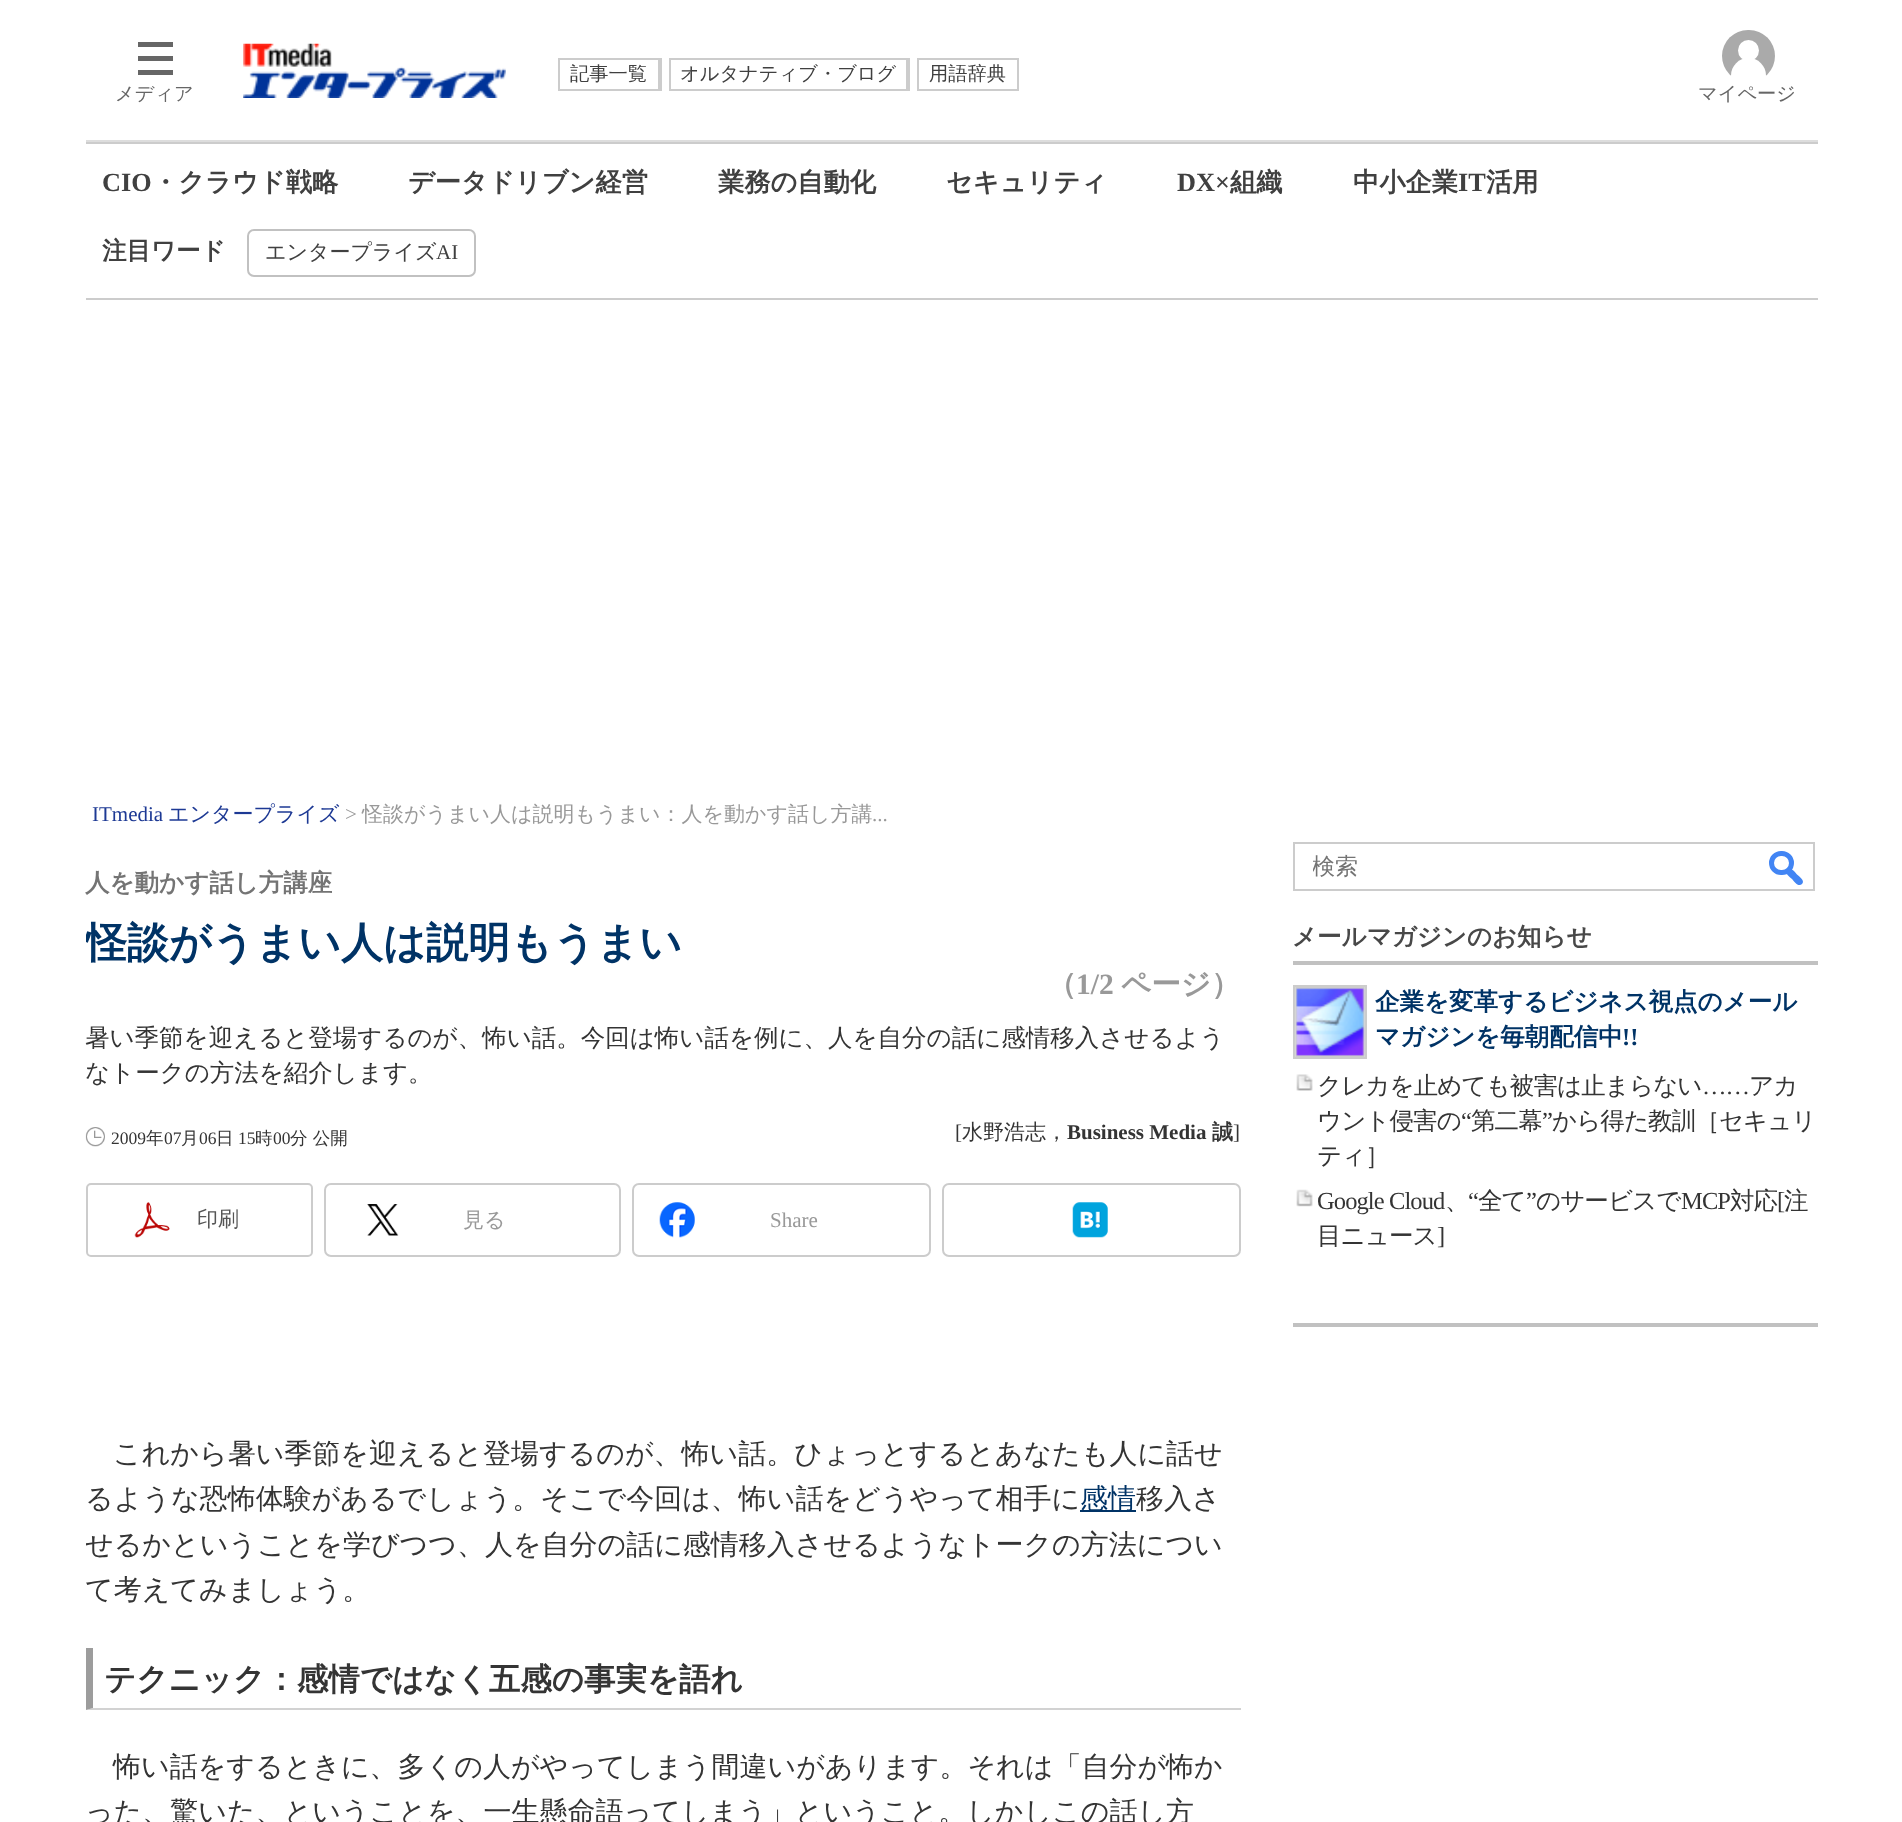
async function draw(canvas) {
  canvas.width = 1902;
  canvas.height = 1822;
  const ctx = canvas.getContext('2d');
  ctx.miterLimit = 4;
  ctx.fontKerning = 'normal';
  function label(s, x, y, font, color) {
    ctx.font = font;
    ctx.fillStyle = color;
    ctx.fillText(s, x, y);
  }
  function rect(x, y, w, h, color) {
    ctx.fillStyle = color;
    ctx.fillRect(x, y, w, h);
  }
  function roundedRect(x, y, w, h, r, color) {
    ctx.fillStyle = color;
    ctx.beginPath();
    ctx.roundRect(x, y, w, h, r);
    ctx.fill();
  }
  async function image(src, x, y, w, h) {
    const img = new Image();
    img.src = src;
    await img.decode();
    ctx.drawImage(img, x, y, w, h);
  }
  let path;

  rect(0, 0, 1902, 1822, '#fff');
  rect(86, 140, 1732, 2, '#ddd');
  await image('assets/img1.png', 243, 43, 263, 55);
  rect(660, 58, 2, 33, '#ccc');
  ctx.strokeStyle = '#ccc';
  ctx.lineWidth = 2;
  ctx.strokeRect(559, 59, 100, 31);
  label('記事一覧', 570, 80, '500 19.25px WenQuanYi Zen Hei', '#404040');
  rect(908, 58, 2, 33, '#ccc');
  ctx.strokeRect(670, 59, 237, 31);
  label('オルタナティブ・ブログ', 680, 80, '500 19.25px WenQuanYi Zen Hei', '#404040');
  ctx.strokeRect(918, 59, 100, 31);
  label('用語辞典', 929, 80, '500 19.25px WenQuanYi Zen Hei', '#404040');
  rect(138, 42, 35, 5, '#666');
  rect(138, 56, 35, 5, '#666');
  rect(138, 70, 35, 5, '#666');
  label('メディア', 115, 100, '500 19.25px WenQuanYi Zen Hei', '#666');
  roundedRect(1722, 30, 53, 52, 26, '#aaa');
  ctx.fillStyle = '#fff';
  ctx.beginPath();
  ctx.roundRect(1731, 58, 35, 24, [17.5, 17.5, 0, 0]);
  ctx.fill();
  ctx.beginPath();
  ctx.arc(1748.5, 50.5, 10.5, 0, 2 * Math.PI);
  ctx.fill();
  label('マイページ', 1698, 100, '500 19.25px WenQuanYi Zen Hei', '#666');
  rect(86, 142, 1732, 2, '#ccc');
  rect(86, 298, 1732, 2, '#ccc');
  label('CIO', 102, 191, 'bold 26.25px Liberation Serif', '#404040');
  label('・クラウド戦略', 152, 191, 'bold 26.25px WenQuanYi Zen Hei', '#404040');
  label('データドリブン経営', 408, 191, 'bold 26.25px WenQuanYi Zen Hei', '#404040');
  label('業務の自動化', 718, 191, 'bold 26.25px WenQuanYi Zen Hei', '#404040');
  label('セキュリティ', 946, 191, 'bold 26.25px WenQuanYi Zen Hei', '#404040');
  label('DX×', 1177, 191, 'bold 26.25px Liberation Serif', '#404040');
  label('組織', 1230, 191, 'bold 26.25px WenQuanYi Zen Hei', '#404040');
  label('中小企業', 1353, 191, 'bold 26.25px WenQuanYi Zen Hei', '#404040');
  label('IT', 1458, 191, 'bold 26.25px Liberation Serif', '#404040');
  label('活用', 1486, 191, 'bold 26.25px WenQuanYi Zen Hei', '#404040');
  label('注目ワード', 102, 259, 'bold 24.5px WenQuanYi Zen Hei', '#404040');
  ctx.beginPath();
  ctx.roundRect(248, 230, 227, 46, 6);
  ctx.strokeStyle = '#c1c1c1';
  ctx.stroke();
  label('エンタープライズ', 265, 259, '500 21px WenQuanYi Zen Hei', '#404040');
  label('AI', 436, 259, '21px Liberation Serif', '#404040');
  label('ITmedia', 92, 821, '21px Liberation Serif', '#1d3994');
  label('エンタープライズ', 168, 821, '500 21px WenQuanYi Zen Hei', '#1d3994');
  label('>', 345, 821, '21px Liberation Serif', '#999');
  label('怪談がうまい人は説明もうまい：人を動かす話し方講', 362, 821, '500 21px WenQuanYi Zen Hei', '#999');
  label('...', 872, 821, '21px Liberation Serif', '#999');
  label('人を動かす話し方講座', 85, 891, 'bold 24.5px WenQuanYi Zen Hei', '#747474');
  ctx.save();
  ctx.beginPath();
  ctx.rect(86, 842, 1155, 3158);
  ctx.clip();
  label('怪談がうまい人は説明もうまい', 85, 957, 'bold 42px WenQuanYi Zen Hei', '#036');
  ctx.restore();
  label('（', 1047, 994, 'bold 29.5px WenQuanYi Zen Hei', '#999');
  label('1/2', 1076, 994, 'bold 29.5px Liberation Serif', '#999');
  label('ページ）', 1121, 994, 'bold 29.5px WenQuanYi Zen Hei', '#999');
  label('暑い季節を迎えると登場するのが、怖い話。今回は怖い話を例に、人を自分の話に感情移入させるよう', 85, 1046, '500 24.5px WenQuanYi Zen Hei', '#343434');
  label('なトークの方法を紹介します。', 85, 1081, '500 24.5px WenQuanYi Zen Hei', '#343434');
  await image('assets/img2.png', 85, 1127, 20, 20);
  label('2009', 111, 1144, '17.5px Liberation Serif', '#343434');
  label('年', 146, 1144, '500 17.5px WenQuanYi Zen Hei', '#343434');
  label('07', 164, 1144, '17.5px Liberation Serif', '#343434');
  label('月', 181, 1144, '500 17.5px WenQuanYi Zen Hei', '#343434');
  label('06', 199, 1144, '17.5px Liberation Serif', '#343434');
  label('日', 216, 1144, '500 17.5px WenQuanYi Zen Hei', '#343434');
  label('15', 238, 1144, '17.5px Liberation Serif', '#343434');
  label('時', 255, 1144, '500 17.5px WenQuanYi Zen Hei', '#343434');
  label('00', 273, 1144, '17.5px Liberation Serif', '#343434');
  label('分 公開', 290, 1144, '500 17.5px WenQuanYi Zen Hei', '#343434');
  label('[', 955, 1139, '21px Liberation Serif', '#343434');
  label('水野浩志，', 962, 1139, '500 21px WenQuanYi Zen Hei', '#343434');
  label('Business Media', 1067, 1139, 'bold 21px Liberation Serif', '#343434');
  label('誠', 1212, 1139, 'bold 21px WenQuanYi Zen Hei', '#343434');
  label(']', 1233, 1139, '21px Liberation Serif', '#343434');
  await image('assets/img3.png', 134, 1202, 36, 36);
  ctx.beginPath();
  ctx.roundRect(87, 1184, 225, 72, 4);
  ctx.strokeStyle = '#ccc';
  ctx.stroke();
  label('印刷', 197, 1226, '500 21px WenQuanYi Zen Hei', '#555');
  await image('assets/img4.png', 367, 1204, 32, 32);
  ctx.beginPath();
  ctx.roundRect(325, 1184, 295, 72, 6);
  ctx.stroke();
  label('見る', 463, 1227, '500 21px WenQuanYi Zen Hei', '#999');
  await image('assets/img5.png', 659, 1202, 36, 36);
  ctx.beginPath();
  ctx.roundRect(633, 1184, 297, 72, 6);
  ctx.stroke();
  label('Share', 770, 1227, '21px Liberation Serif', '#999');
  await image('assets/img6.png', 1072, 1202, 36, 36);
  ctx.beginPath();
  ctx.roundRect(943, 1184, 297, 72, 6);
  ctx.stroke();
  label('これから暑い季節を迎えると登場するのが、怖い話。ひょっとするとあなたも人に話せ', 113, 1463, '500 28px WenQuanYi Zen Hei', '#343434');
  label('るような恐怖体験があるでしょう。そこで今回は、怖い話をどうやって相手に', 85, 1508, '500 28px WenQuanYi Zen Hei', '#343434');
  rect(1080, 1510, 56, 2, '#036');
  label('感情', 1080, 1508, '500 28px WenQuanYi Zen Hei', '#036');
  label('移入さ', 1136, 1508, '500 28px WenQuanYi Zen Hei', '#343434');
  ctx.save();
  ctx.beginPath();
  ctx.rect(86, 842, 1155, 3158);
  ctx.clip();
  label('せるかということを学びつつ、人を自分の話に感情移入させるようなトークの方法につい', 85, 1554, '500 28px WenQuanYi Zen Hei', '#343434');
  ctx.restore();
  label('て考えてみましょう。', 85, 1599, '500 28px WenQuanYi Zen Hei', '#343434');
  ctx.fillStyle = '#d2d2d2';
  path = new Path2D('M1241 1710H86L93 1708H1241Z');
  ctx.fill(path);
  ctx.fillStyle = '#9c9c9c';
  path = new Path2D('M86 1710V1648H93V1708Z');
  ctx.fill(path);
  label('テクニック：感情ではなく五感の事実を語れ', 104, 1690, 'bold 31.5px WenQuanYi Zen Hei', '#343434');
  label('怖い話をするときに、多くの人がやってしまう間違いがあります。それは「自分が怖か', 113, 1776, '500 28px WenQuanYi Zen Hei', '#343434');
  label('った、驚いた、ということを、一生懸命語ってしまう」ということ。しかしこの話し方', 85, 1821, '500 28px WenQuanYi Zen Hei', '#343434');
  ctx.strokeRect(1294, 843, 520, 47);
  ctx.save();
  ctx.beginPath();
  ctx.rect(1313, 852, 497, 32);
  ctx.clip();
  label('検索', 1312, 874, '500 23px WenQuanYi Zen Hei', '#747474');
  ctx.restore();
  ctx.beginPath();
  ctx.roundRect(1771.5, 853.5, 20, 19, 9.5);
  ctx.strokeStyle = '#4285f4';
  ctx.lineWidth = 5;
  ctx.stroke();
  ctx.fillStyle = '#4285f4';
  path = new Path2D('M1787 869.5C1790.5 866 1795 872 1797 874.5C1799 876.5 1805.5 880.5 1802 884C1798.5 887.5 1794 881.5 1792 879C1790 877 1783.5 873 1787 869.5Z');
  ctx.fill(path);
  rect(1293, 961, 525, 4, '#c1c1c1');
  label('メールマガジンのお知らせ', 1292, 945, 'bold 24.5px WenQuanYi Zen Hei', '#484848');
  ctx.strokeStyle = '#ccc';
  ctx.lineWidth = 2;
  ctx.strokeRect(1294, 986, 72, 72);
  await image('assets/img7.png', 1295, 987, 70, 70);
  label('企業を変革するビジネス視点のメール', 1375, 1010, 'bold 24.5px WenQuanYi Zen Hei', '#036');
  label('マガジンを毎朝配信中', 1375, 1045, 'bold 24.5px WenQuanYi Zen Hei', '#036');
  label('!!', 1622, 1045, 'bold 24.5px Liberation Serif', '#036');
  await image('assets/img8.png', 1296, 1074, 17, 17);
  ctx.letterSpacing = '-0.9px';
  label('クレカを止めても被害は止まらない', 1317, 1094, '500 24.5px WenQuanYi Zen Hei', '#343434');
  label('……', 1702, 1094, '24.5px Liberation Serif', '#343434');
  label('アカ', 1749, 1094, '500 24.5px WenQuanYi Zen Hei', '#343434');
  label('ウント侵害の', 1317, 1129, '500 24.5px WenQuanYi Zen Hei', '#343434');
  label('“', 1461, 1129, '24.5px Liberation Serif', '#343434');
  label('第二幕', 1471, 1129, '500 24.5px WenQuanYi Zen Hei', '#343434');
  label('”', 1542, 1129, '24.5px Liberation Serif', '#343434');
  label('から得た教訓［セキュリ', 1552, 1129, '500 24.5px WenQuanYi Zen Hei', '#343434');
  label('ティ］', 1317, 1164, '500 24.5px WenQuanYi Zen Hei', '#343434');
  await image('assets/img9.png', 1296, 1189, 17, 18);
  label('Google Cloud', 1317, 1209, '24.5px Liberation Serif', '#343434');
  label('、', 1445, 1209, '500 24.5px WenQuanYi Zen Hei', '#343434');
  label('“', 1468, 1209, '24.5px Liberation Serif', '#343434');
  label('全て', 1478, 1209, '500 24.5px WenQuanYi Zen Hei', '#343434');
  label('”', 1526, 1209, '24.5px Liberation Serif', '#343434');
  label('のサービスで', 1536, 1209, '500 24.5px WenQuanYi Zen Hei', '#343434');
  label('MCP', 1681, 1209, '24.5px Liberation Serif', '#343434');
  label('対応', 1730, 1209, '500 24.5px WenQuanYi Zen Hei', '#343434');
  label('[', 1777, 1209, '24.5px Liberation Serif', '#343434');
  label('注', 1784, 1209, '500 24.5px WenQuanYi Zen Hei', '#343434');
  label('目ニュース', 1317, 1244, '500 24.5px WenQuanYi Zen Hei', '#343434');
  label(']', 1437, 1244, '24.5px Liberation Serif', '#343434');
  rect(1293, 1323, 525, 4, '#c1c1c1');
}

draw(document.querySelector('canvas'));
